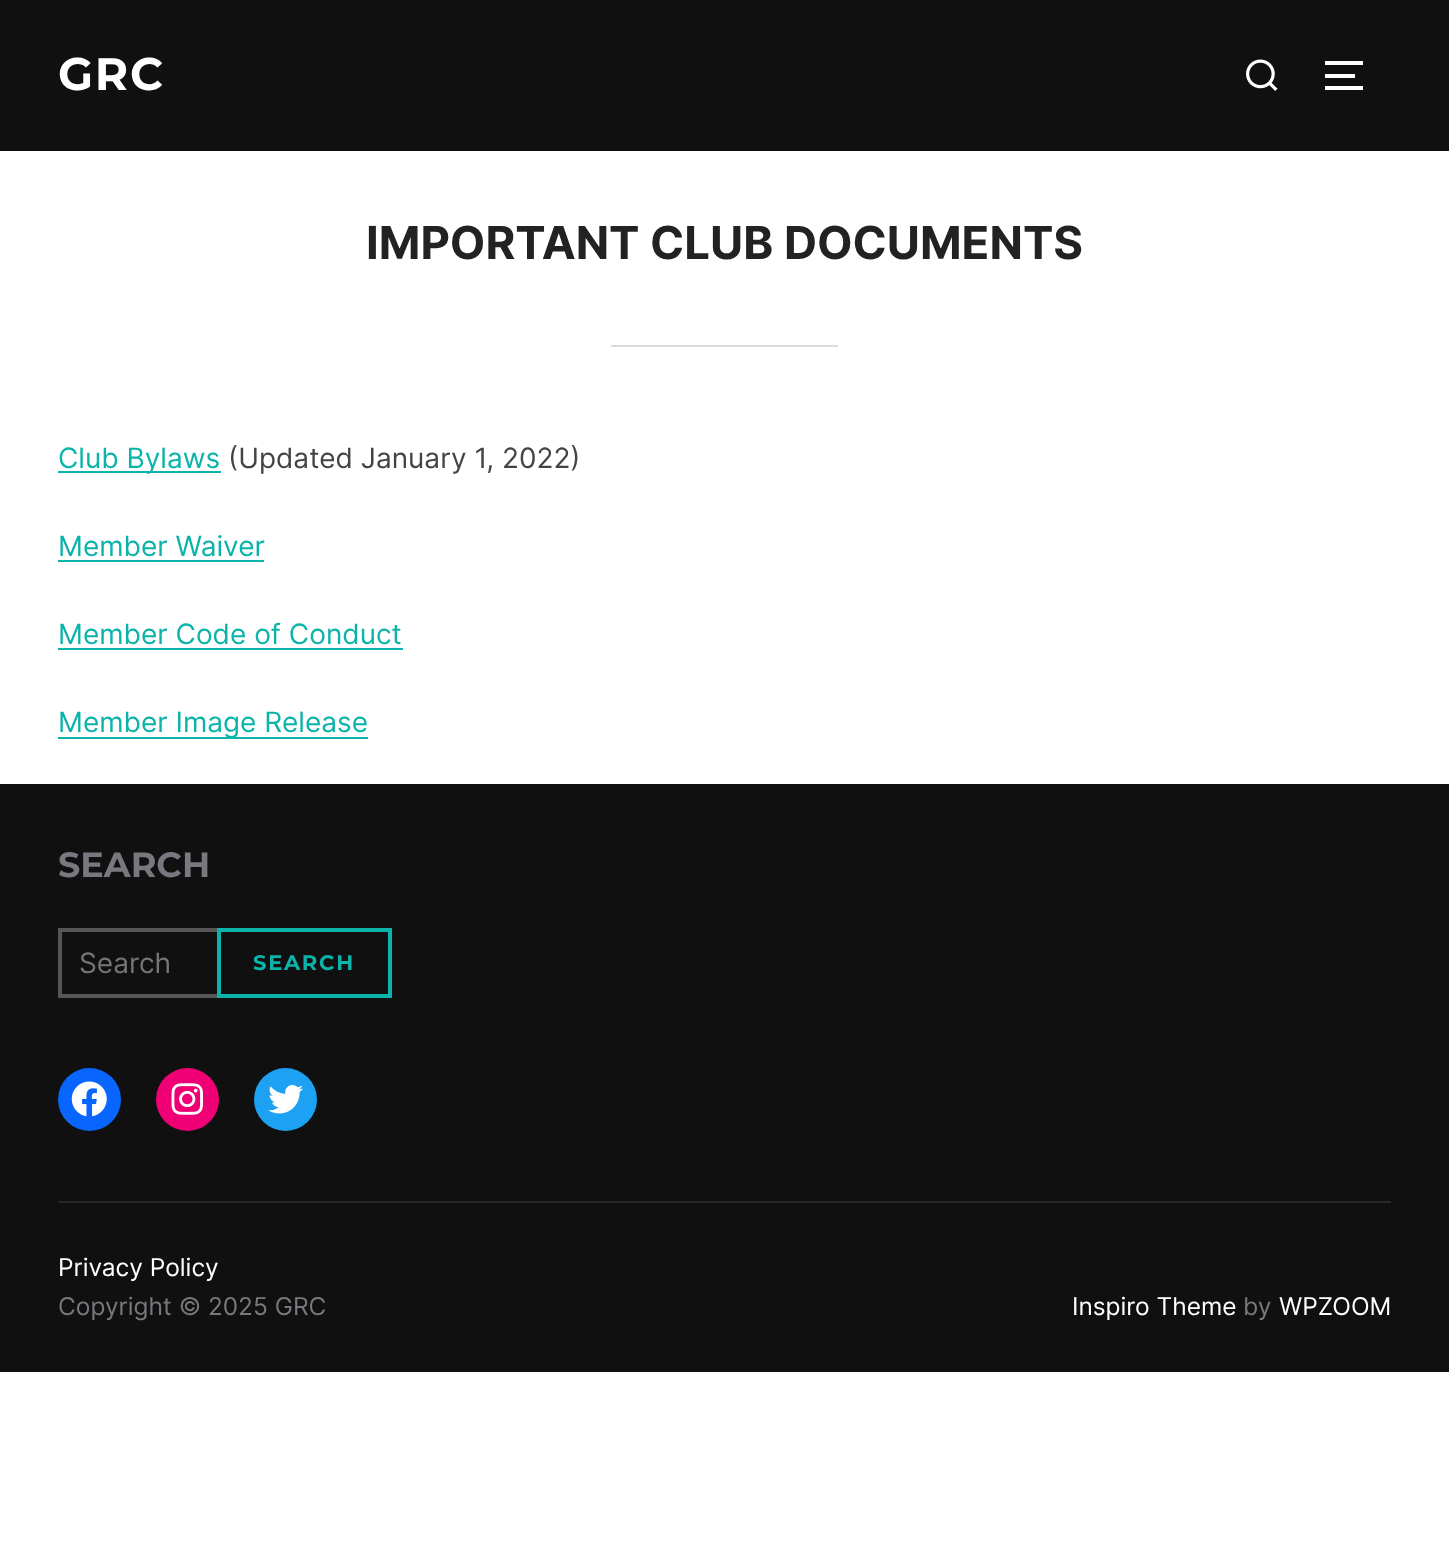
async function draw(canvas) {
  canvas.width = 1449;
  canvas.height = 1545;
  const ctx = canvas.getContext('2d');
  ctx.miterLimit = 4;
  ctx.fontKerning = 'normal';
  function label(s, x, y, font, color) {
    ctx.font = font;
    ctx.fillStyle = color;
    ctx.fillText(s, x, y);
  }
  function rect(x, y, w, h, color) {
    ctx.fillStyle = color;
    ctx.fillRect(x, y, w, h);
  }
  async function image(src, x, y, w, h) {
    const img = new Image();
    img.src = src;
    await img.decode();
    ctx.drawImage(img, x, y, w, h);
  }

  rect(0, 0, 1449, 1545, '#fff');
  rect(0, 0, 1449, 151, '#101010');
  ctx.letterSpacing = '1.75px';
  label('GRC', 58, 90, 'bold 45.5px Montserrat', '#fff');
  await image('assets/img1.png', 1246, 59, 32, 32);
  rect(1325, 61, 38, 4, '#fff');
  rect(1325, 74, 30, 4, '#fff');
  rect(1325, 86, 38, 4, '#fff');
  ctx.letterSpacing = '0px';
  label('IMPORTANT CLUB DOCUMENTS', 366, 259, 'bold 45.5px Inter', '#222');
  rect(611, 345, 227, 2, '#dbdbdb');
  rect(58, 471, 163, 2, '#0bb4aa');
  label('Club Bylaws', 58, 468, '28px Inter', '#0bb4aa');
  label('(Updated January 1, 2022)', 228, 468, '28px Inter', '#444');
  label('Member Waiver', 58, 556, '28px Inter', '#0bb4aa');
  rect(58, 560, 206, 2, '#0bb4aa');
  label('Member Code of Conduct', 58, 644, '28px Inter', '#0bb4aa');
  rect(58, 648, 345, 2, '#0bb4aa');
  rect(58, 737, 310, 2, '#0bb4aa');
  label('Member Image Release', 58, 732, '28px Inter', '#0bb4aa');
  rect(0, 784, 1449, 588, '#101010');
  label('SEARCH', 58, 877, 'bold 35px Montserrat', '#78787f');
  ctx.strokeStyle = '#565555';
  ctx.lineWidth = 4;
  ctx.strokeRect(60, 930, 330, 66);
  label('Search', 79, 973, '28px Inter', '#757575');
  ctx.strokeStyle = '#0bb4aa';
  ctx.strokeRect(219, 930, 171, 66);
  ctx.letterSpacing = '1.75px';
  label('SEARCH', 253, 970, 'bold 21px Montserrat', '#0bb4aa');
  ctx.fillStyle = '#0866ff';
  ctx.beginPath();
  ctx.arc(89.5, 1099.5, 31.5, 0, 2 * Math.PI);
  ctx.fill();
  await image('assets/img2.png', 71, 1081, 36, 36);
  ctx.fillStyle = '#f00075';
  ctx.beginPath();
  ctx.arc(187.5, 1099.5, 31.5, 0, 2 * Math.PI);
  ctx.fill();
  await image('assets/img3.png', 171, 1083, 32, 32);
  ctx.fillStyle = '#1da1f2';
  ctx.beginPath();
  ctx.arc(285.5, 1099.5, 31.5, 0, 2 * Math.PI);
  ctx.fill();
  await image('assets/img4.png', 268, 1085, 35, 29);
  rect(58, 1201, 1333, 2, '#282828');
  ctx.letterSpacing = '0px';
  label('Privacy Policy', 58, 1276, '24.5px Inter', '#fff');
  label('Copyright © 2025 GRC', 58, 1315, '24.5px Inter', '#78787f');
  label('Inspiro Theme', 1072, 1315, '24.5px Inter', '#fff');
  label('by', 1243, 1315, '24.5px Inter', '#78787f');
  label('WPZOOM', 1279, 1315, '24.5px Inter', '#fff');
}

draw(document.querySelector('canvas'));
